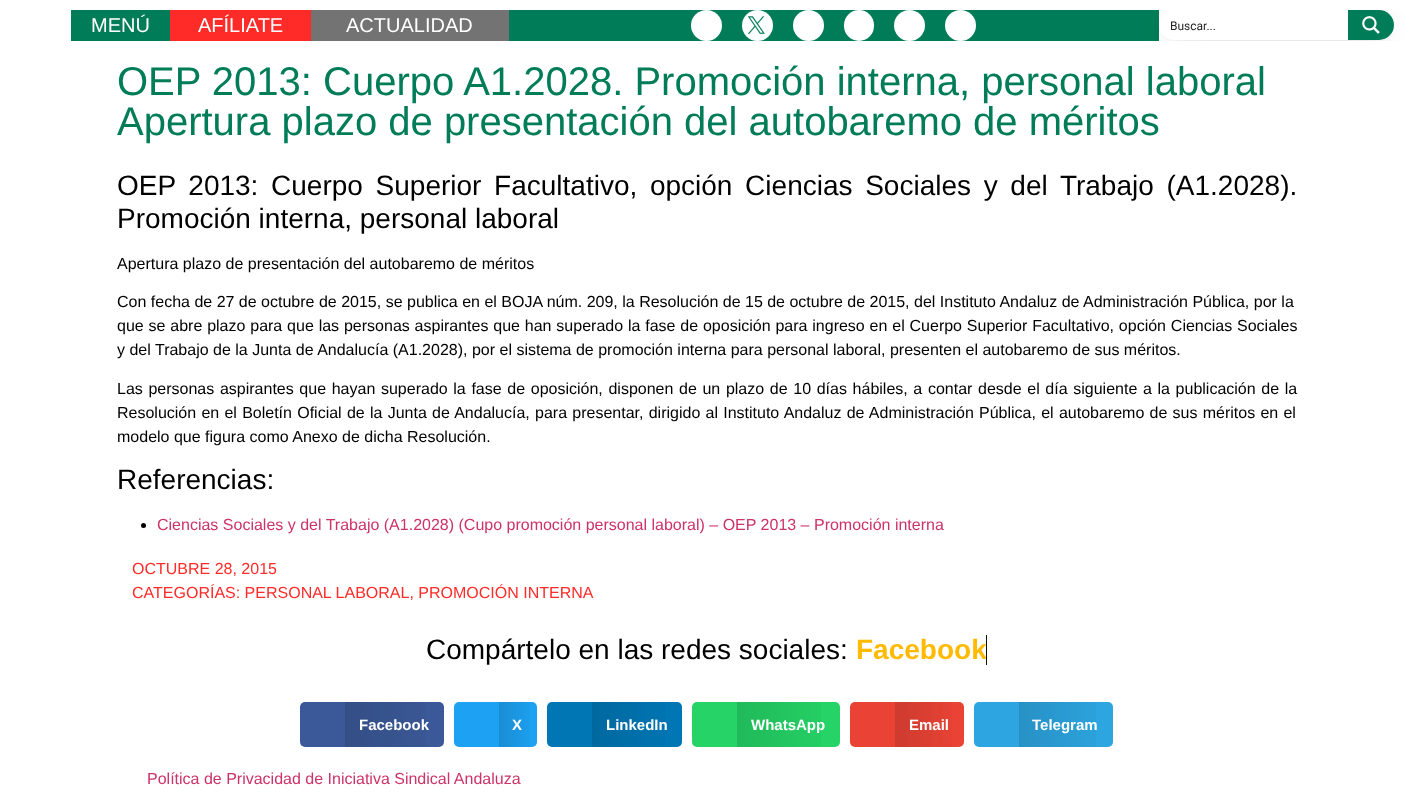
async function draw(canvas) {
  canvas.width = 1413;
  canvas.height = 806;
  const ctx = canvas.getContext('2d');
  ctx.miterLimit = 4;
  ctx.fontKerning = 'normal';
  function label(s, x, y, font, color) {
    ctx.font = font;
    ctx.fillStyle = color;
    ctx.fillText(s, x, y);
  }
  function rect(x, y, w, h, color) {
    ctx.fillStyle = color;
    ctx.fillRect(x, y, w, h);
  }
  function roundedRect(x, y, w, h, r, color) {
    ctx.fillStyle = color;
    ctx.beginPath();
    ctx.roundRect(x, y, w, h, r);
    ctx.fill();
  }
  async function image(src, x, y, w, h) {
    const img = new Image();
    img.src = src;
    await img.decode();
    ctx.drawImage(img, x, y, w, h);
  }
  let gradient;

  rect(0, 0, 1413, 806, '#fff');
  rect(71, 10, 99, 31, '#007d58');
  label('MENÚ', 91, 32, '20px Liberation Sans', '#fff');
  rect(170, 10, 141, 31, '#ff2b29');
  label('AFÍLIATE', 198, 32, '20px Liberation Sans', '#fff');
  rect(311, 10, 198, 31, '#737373');
  label('ACTUALIDAD', 346, 32, '20px Liberation Sans', '#fff');
  rect(509, 10, 650, 31, '#007d58');
  ctx.fillStyle = '#fff';
  ctx.beginPath();
  ctx.arc(706.5, 25.5, 15.5, 0, 2 * Math.PI);
  ctx.fill();
  ctx.beginPath();
  ctx.arc(757.5, 25.5, 15.5, 0, 2 * Math.PI);
  ctx.fill();
  await image('assets/img1.png', 747, 16, 18, 18);
  ctx.beginPath();
  ctx.arc(808.5, 25.5, 15.5, 0, 2 * Math.PI);
  ctx.fill();
  roundedRect(844, 10, 30, 31, 15, '#fff');
  ctx.beginPath();
  ctx.arc(909.5, 25.5, 15.5, 0, 2 * Math.PI);
  ctx.fill();
  ctx.beginPath();
  ctx.arc(960.5, 25.5, 15.5, 0, 2 * Math.PI);
  ctx.fill();
  ctx.save();
  ctx.beginPath();
  ctx.rect(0, 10, 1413, 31);
  ctx.clip();
  ctx.fillStyle = '#000';
  ctx.filter = 'blur(14px)';
  ctx.beginPath();
  ctx.roundRect(1172, 27, 209, 4, 2);
  ctx.fill();
  ctx.filter = 'none';
  ctx.restore();
  roundedRect(1159, 10, 235, 30, 15, '#fff');
  label('Buscar...', 1170, 30, '12px Roboto', '#262626');
  ctx.fillStyle = '#007d58';
  ctx.beginPath();
  ctx.roundRect(1348, 10, 46, 30, [0, 15, 15, 0]);
  ctx.fill();
  await image('assets/img2.png', 1362, 16, 18, 18);
  label('OEP 2013: Cuerpo A1.2028. Promoción interna, personal laboral', 117, 95, '40px Liberation Sans', '#007d58');
  label('Apertura plazo de presentación del autobaremo de méritos', 117, 135, '40px Liberation Sans', '#007d58');
  ctx.wordSpacing = '4.9px';
  label('OEP 2013: Cuerpo Superior Facultativo, opción Ciencias Sociales y del Trabajo (A1.2028).', 117, 195, '28px Liberation Sans', '#000');
  ctx.wordSpacing = '0px';
  label('Promoción interna, personal laboral', 117, 228, '28px Liberation Sans', '#000');
  label('Apertura plazo de presentación del autobaremo de méritos', 117, 269, '16px Liberation Sans', '#000');
  label('Con fecha de 27 de octubre de 2015, se publica en el BOJA núm. 209, la Resolución de 15 de octubre de 2015, del Instituto Andaluz de Administración Pública, por la', 117, 307, '16px Liberation Sans', '#000');
  ctx.wordSpacing = '0.4px';
  label('que se abre plazo para que las personas aspirantes que han superado la fase de oposición para ingreso en el Cuerpo Superior Facultativo, opción Ciencias Sociales', 117, 331, '16px Liberation Sans', '#000');
  ctx.wordSpacing = '0px';
  label('y del Trabajo de la Junta de Andalucía (A1.2028), por el sistema de promoción interna para personal laboral, presenten el autobaremo de sus méritos.', 117, 355, '16px Liberation Sans', '#000');
  ctx.wordSpacing = '1.2px';
  label('Las personas aspirantes que hayan superado la fase de oposición, disponen de un plazo de 10 días hábiles, a contar desde el día siguiente a la publicación de la', 117, 394, '16px Liberation Sans', '#000');
  ctx.wordSpacing = '0.8px';
  label('Resolución en el Boletín Oficial de la Junta de Andalucía, para presentar, dirigido al Instituto Andaluz de Administración Pública, el autobaremo de sus méritos en el', 117, 418, '16px Liberation Sans', '#000');
  ctx.wordSpacing = '0px';
  label('modelo que figura como Anexo de dicha Resolución.', 117, 442, '16px Liberation Sans', '#000');
  label('Referencias:', 117, 489, '28px Liberation Sans', '#000');
  ctx.beginPath();
  ctx.arc(143.5, 525.5, 2.5, 0, 2 * Math.PI);
  ctx.fill();
  label('Ciencias Sociales y del Trabajo (A1.2028) (Cupo promoción personal laboral) – OEP 2013 – Promoción interna', 157, 530, '16px Liberation Sans', '#c36');
  label('OCTUBRE 28, 2015', 132, 574, '16px Liberation Sans', '#ff2b29');
  label('CATEGORÍAS: PERSONAL LABORAL, PROMOCIÓN INTERNA', 132, 598, '16px Liberation Sans', '#ff2b29');
  label('Compártelo en las redes sociales:', 426, 659, '28px Liberation Sans', '#000');
  label('Facebook', 856, 659, 'bold 28px Liberation Sans', '#ffba01');
  rect(986, 635, 1, 30, '#0d0d0d');
  roundedRect(300, 702, 144, 45, 5, '#3b5998');
  gradient = ctx.createLinearGradient(345, 725, 444, 725);
  gradient.addColorStop(0, '#0000001f');
  gradient.addColorStop(1, '#00000000');
  ctx.fillStyle = gradient;
  ctx.fillRect(345, 702, 81, 45);
  label('Facebook', 359, 730, 'bold 15px Liberation Sans', '#fff');
  roundedRect(454, 702, 83, 45, 5, '#1da1f2');
  gradient = ctx.createLinearGradient(499, 725, 537, 725);
  gradient.addColorStop(0, '#0000001f');
  gradient.addColorStop(1, '#00000000');
  ctx.fillStyle = gradient;
  ctx.fillRect(499, 702, 31, 45);
  label('X', 512, 730, 'bold 15px Liberation Sans', '#fff');
  roundedRect(547, 702, 135, 45, 5, '#0077b5');
  gradient = ctx.createLinearGradient(592, 725, 682, 725);
  gradient.addColorStop(0, '#0000001f');
  gradient.addColorStop(1, '#00000000');
  ctx.fillStyle = gradient;
  ctx.fillRect(592, 702, 74, 45);
  label('LinkedIn', 606, 730, 'bold 15px Liberation Sans', '#fff');
  roundedRect(692, 702, 148, 45, 5, '#25d366');
  gradient = ctx.createLinearGradient(737, 725, 840, 725);
  gradient.addColorStop(0, '#0000001f');
  gradient.addColorStop(1, '#00000000');
  ctx.fillStyle = gradient;
  ctx.fillRect(737, 702, 84, 45);
  label('WhatsApp', 751, 730, 'bold 15px Liberation Sans', '#fff');
  roundedRect(850, 702, 114, 45, 5, '#ea4335');
  gradient = ctx.createLinearGradient(895, 725, 964, 725);
  gradient.addColorStop(0, '#0000001f');
  gradient.addColorStop(1, '#00000000');
  ctx.fillStyle = gradient;
  ctx.fillRect(895, 702, 57, 45);
  label('Email', 909, 730, 'bold 15px Liberation Sans', '#fff');
  roundedRect(974, 702, 139, 45, 5, '#2ca5e0');
  gradient = ctx.createLinearGradient(1019, 725, 1113, 725);
  gradient.addColorStop(0, '#0000001f');
  gradient.addColorStop(1, '#00000000');
  ctx.fillStyle = gradient;
  ctx.fillRect(1019, 702, 77, 45);
  label('Telegram', 1032, 730, 'bold 15px Liberation Sans', '#fff');
  label('Política de Privacidad de Iniciativa Sindical Andaluza', 147, 784, '16px Liberation Sans', '#c36');
}

draw(document.querySelector('canvas'));
